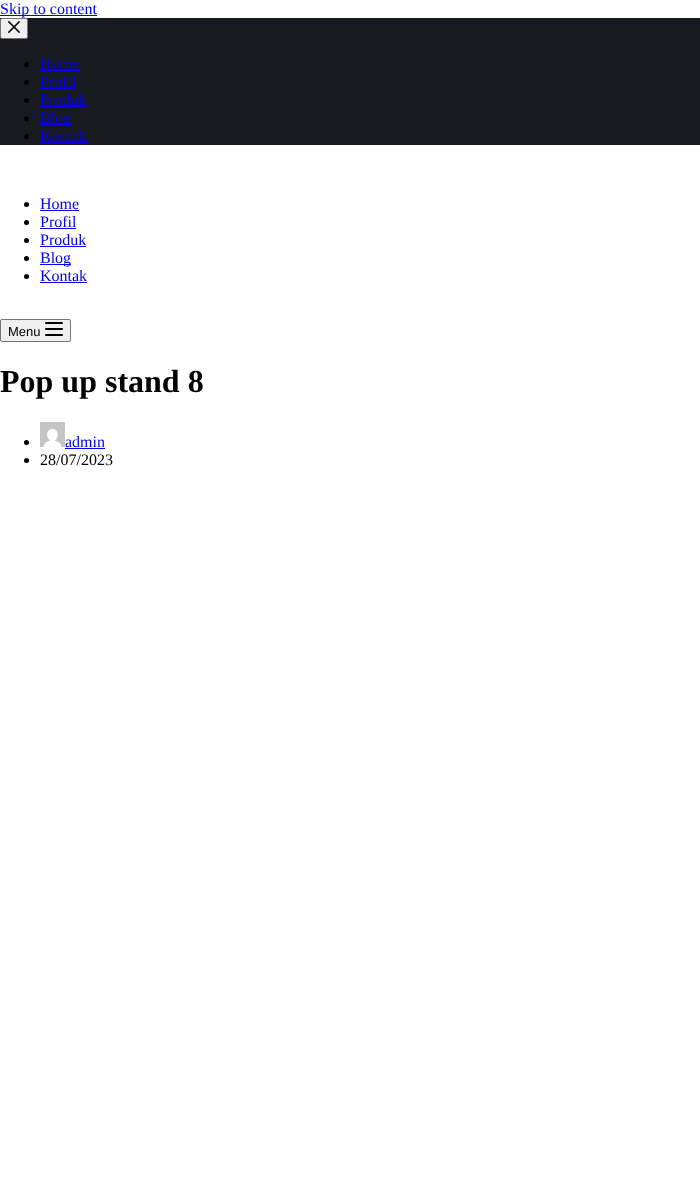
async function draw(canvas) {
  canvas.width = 700;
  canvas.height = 1183;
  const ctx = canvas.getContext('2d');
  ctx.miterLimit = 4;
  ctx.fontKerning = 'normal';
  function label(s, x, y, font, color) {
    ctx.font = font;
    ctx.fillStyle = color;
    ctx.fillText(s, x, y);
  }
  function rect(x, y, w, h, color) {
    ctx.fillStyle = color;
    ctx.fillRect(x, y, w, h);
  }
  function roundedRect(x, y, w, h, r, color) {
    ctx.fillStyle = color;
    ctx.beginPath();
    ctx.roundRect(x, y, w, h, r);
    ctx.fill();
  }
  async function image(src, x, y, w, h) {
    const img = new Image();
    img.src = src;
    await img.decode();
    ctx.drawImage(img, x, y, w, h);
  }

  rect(0, 0, 700, 1183, '#fff');
  rect(0, 15, 97, 1, '#00e');
  label('Skip to content', 0, 14, '16px Liberation Serif', '#00e');
  rect(0, 18, 700, 127, '#171a1e');
  ctx.fillStyle = '#efefef';
  ctx.beginPath();
  ctx.roundRect(0.5, 18.5, 27, 20, 1.5);
  ctx.fill();
  ctx.strokeStyle = '#767676';
  ctx.stroke();
  await image('assets/img1.png', 8, 21, 12, 12);
  ctx.fillStyle = '#000';
  ctx.beginPath();
  ctx.arc(26.5, 64.5, 2.5, 0, 2 * Math.PI);
  ctx.fill();
  label('Home', 40, 69, '16px Liberation Serif', '#00e');
  rect(40, 70, 39, 1, '#00e');
  ctx.fillStyle = '#000';
  ctx.beginPath();
  ctx.arc(26.5, 82.5, 2.5, 0, 2 * Math.PI);
  ctx.fill();
  label('Profil', 40, 87, '16px Liberation Serif', '#00e');
  rect(40, 88, 36, 1, '#00e');
  ctx.fillStyle = '#000';
  ctx.beginPath();
  ctx.arc(26.5, 100.5, 2.5, 0, 2 * Math.PI);
  ctx.fill();
  label('Produk', 40, 105, '16px Liberation Serif', '#00e');
  rect(40, 106, 46, 1, '#00e');
  ctx.fillStyle = '#000';
  ctx.beginPath();
  ctx.arc(26.5, 118.5, 2.5, 0, 2 * Math.PI);
  ctx.fill();
  rect(40, 124, 31, 1, '#00e');
  label('Blog', 40, 123, '16px Liberation Serif', '#00e');
  ctx.fillStyle = '#000';
  ctx.beginPath();
  ctx.arc(26.5, 136.5, 2.5, 0, 2 * Math.PI);
  ctx.fill();
  label('Kontak', 40, 141, '16px Liberation Serif', '#00e');
  rect(40, 142, 47, 1, '#00e');
  ctx.fillStyle = '#000';
  ctx.beginPath();
  ctx.arc(26.5, 204.5, 2.5, 0, 2 * Math.PI);
  ctx.fill();
  label('Home', 40, 209, '16px Liberation Serif', '#00e');
  rect(40, 210, 39, 1, '#00e');
  ctx.fillStyle = '#000';
  ctx.beginPath();
  ctx.arc(26.5, 222.5, 2.5, 0, 2 * Math.PI);
  ctx.fill();
  label('Profil', 40, 227, '16px Liberation Serif', '#00e');
  rect(40, 228, 36, 1, '#00e');
  ctx.fillStyle = '#000';
  ctx.beginPath();
  ctx.arc(26.5, 240.5, 2.5, 0, 2 * Math.PI);
  ctx.fill();
  label('Produk', 40, 245, '16px Liberation Serif', '#00e');
  rect(40, 246, 46, 1, '#00e');
  ctx.fillStyle = '#000';
  ctx.beginPath();
  ctx.arc(26.5, 258.5, 2.5, 0, 2 * Math.PI);
  ctx.fill();
  rect(40, 264, 31, 1, '#00e');
  label('Blog', 40, 263, '16px Liberation Serif', '#00e');
  ctx.fillStyle = '#000';
  ctx.beginPath();
  ctx.arc(26.5, 276.5, 2.5, 0, 2 * Math.PI);
  ctx.fill();
  label('Kontak', 40, 281, '16px Liberation Serif', '#00e');
  rect(40, 282, 47, 1, '#00e');
  ctx.fillStyle = '#efefef';
  ctx.beginPath();
  ctx.roundRect(0.5, 319.5, 70, 22, 1.5);
  ctx.fill();
  ctx.stroke();
  roundedRect(45, 322, 18, 2, 1, '#000');
  label('Menu', 8, 336, '13px Liberation Sans', '#000');
  roundedRect(45, 328, 18, 2, 1, '#000');
  roundedRect(45, 334, 18, 2, 1, '#000');
  label('Pop up stand 8', 0, 392, 'bold 32px Liberation Serif', '#000');
  ctx.beginPath();
  ctx.arc(26.5, 442.5, 2.5, 0, 2 * Math.PI);
  ctx.fill();
  await image('assets/img2.png', 40, 422, 25, 25);
  label('admin', 65, 447, '16px Liberation Serif', '#00e');
  rect(65, 448, 40, 1, '#00e');
  ctx.fillStyle = '#000';
  ctx.beginPath();
  ctx.arc(26.5, 460.5, 2.5, 0, 2 * Math.PI);
  ctx.fill();
  label('28/07/2023', 40, 465, '16px Liberation Serif', '#000');
}

draw(document.querySelector('canvas'));
